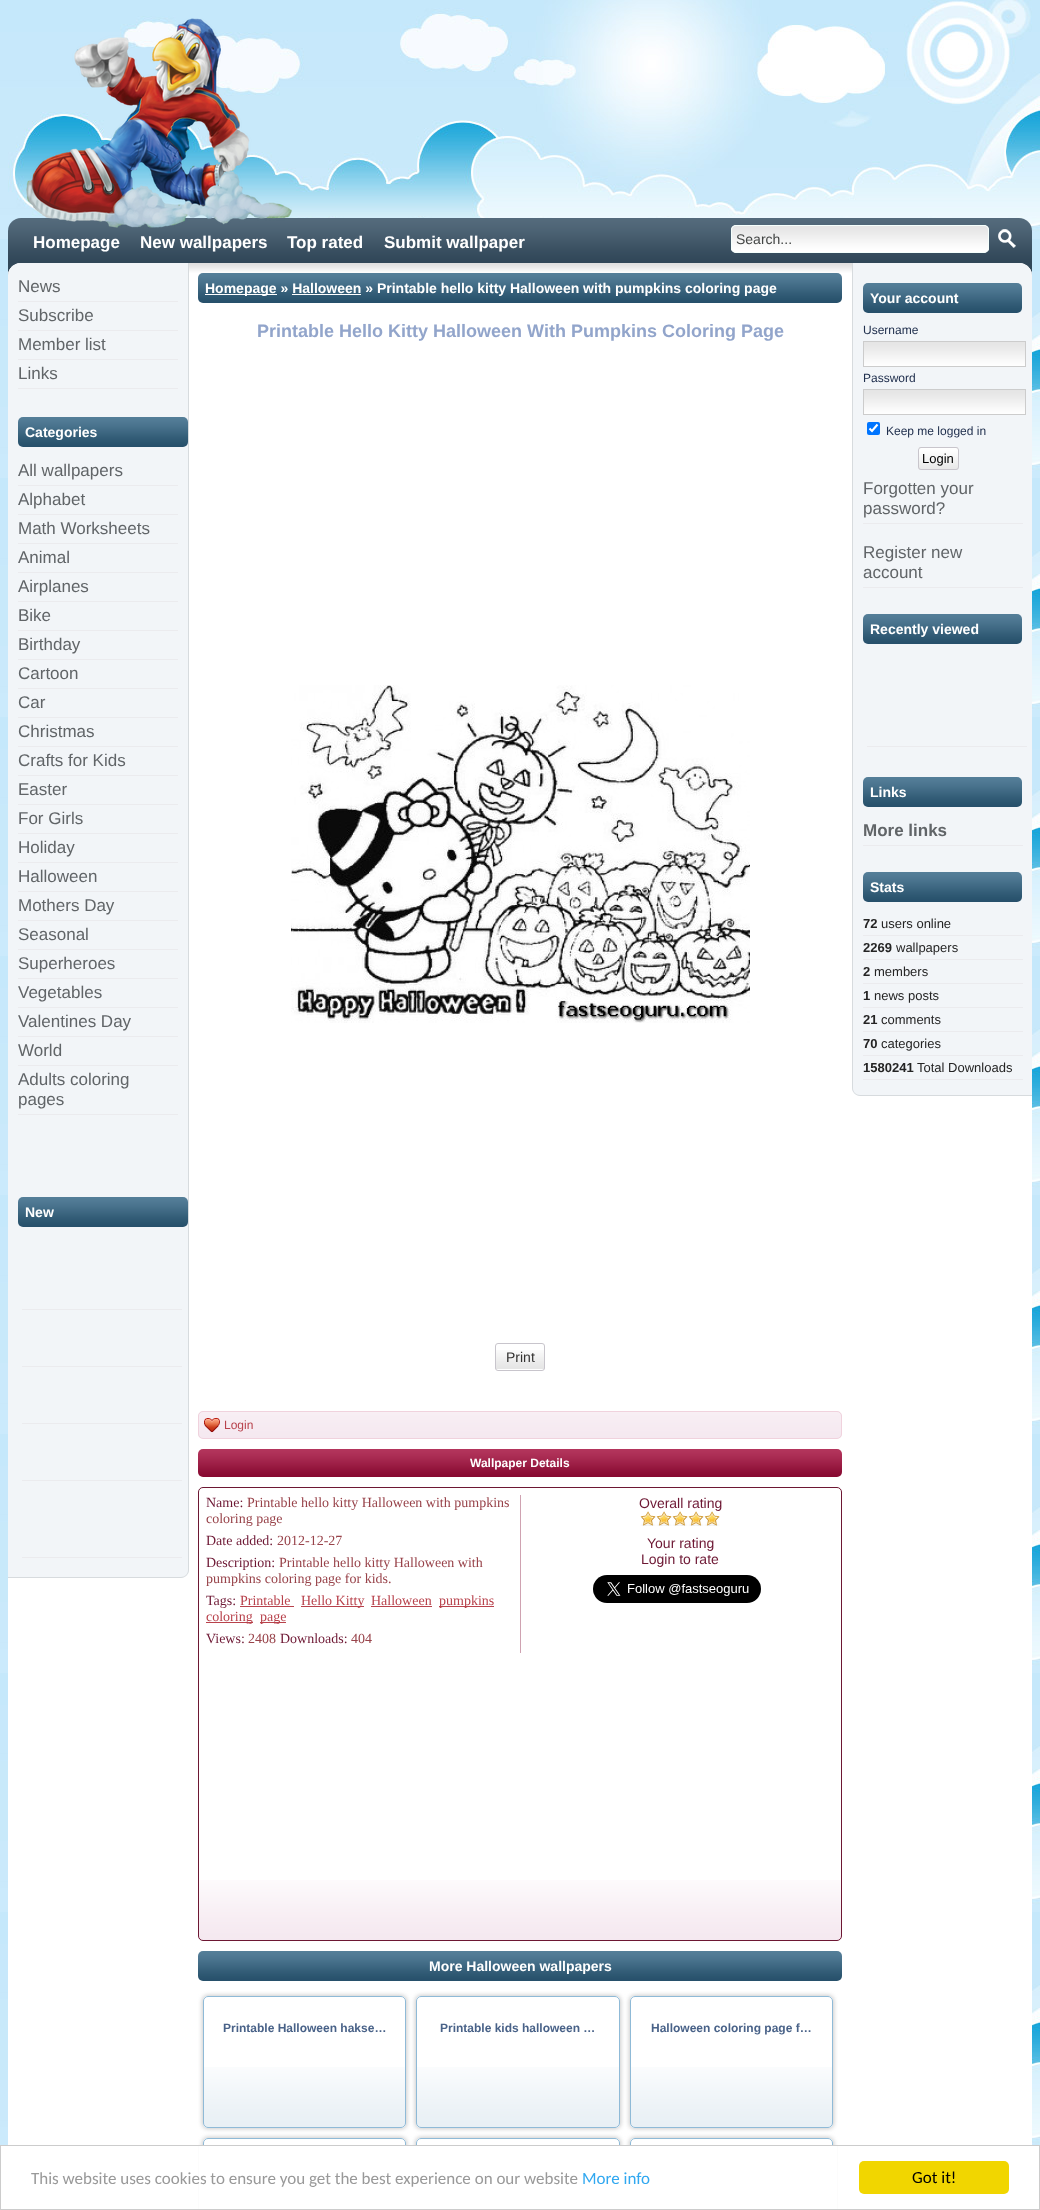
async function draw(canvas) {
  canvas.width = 1040;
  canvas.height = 2210;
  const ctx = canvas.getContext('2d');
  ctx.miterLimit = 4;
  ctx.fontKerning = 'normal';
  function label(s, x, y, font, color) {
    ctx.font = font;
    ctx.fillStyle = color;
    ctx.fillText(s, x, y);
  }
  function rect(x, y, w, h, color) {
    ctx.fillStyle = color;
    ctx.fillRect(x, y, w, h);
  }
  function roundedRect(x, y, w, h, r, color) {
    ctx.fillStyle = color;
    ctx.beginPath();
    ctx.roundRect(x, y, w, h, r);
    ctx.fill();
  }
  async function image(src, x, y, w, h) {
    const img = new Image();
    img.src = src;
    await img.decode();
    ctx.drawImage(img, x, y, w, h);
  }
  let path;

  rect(0, 0, 1040, 2210, '#fff');
  await image('assets/img1.png', 0, 0, 1040, 2145);
  await image('assets/img3.png', 8, 218, 1024, 45);
  await image('assets/img2.png', 26, 18, 266, 210);
  label('Homepage', 33, 248, 'bold 17px Liberation Sans', '#fff');
  label('New wallpapers', 140, 248, 'bold 17px Liberation Sans', '#fff');
  label('Top rated', 287, 248, 'bold 17px Liberation Sans', '#fff');
  label('Submit wallpaper', 384, 248, 'bold 17px Liberation Sans', '#fff');
  roundedRect(731, 225, 258, 28, 5, '#fff');
  await image('assets/img4.png', 731, 226, 258, 25);
  ctx.beginPath();
  ctx.roundRect(731.5, 225.5, 257, 27, 4.5);
  ctx.strokeStyle = '#f5fffc';
  ctx.stroke();
  label('Search...', 736, 244, '14px Liberation Sans', '#414443');
  await image('assets/img5.png', 998, 229, 18, 19);
  rect(8, 263, 1024, 13, '#314758');
  roundedRect(8, 263, 1024, 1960, 13, '#fff');
  await image('assets/img6.png', 8, 263, 1024, 10);
  ctx.fillStyle = '#f2f5f8';
  ctx.beginPath();
  ctx.roundRect(8, 263, 181, 1315, [13, 0, 8, 0]);
  ctx.fill();
  ctx.fillStyle = '#d7dbde';
  path = new Path2D('M8 263H189V1570C189 1574 185 1578 181 1578H8ZM8 263H188V1570C188 1574 185 1577 181 1577H8Z');
  ctx.fill(path, 'evenodd');
  rect(18, 301, 160, 1, '#ebebee');
  label('News', 18, 292, '17px Liberation Sans', '#616568');
  rect(18, 330, 160, 1, '#ebebee');
  label('Subscribe', 18, 321, '17px Liberation Sans', '#616568');
  rect(18, 359, 160, 1, '#ebebee');
  label('Member list', 18, 350, '17px Liberation Sans', '#616568');
  rect(18, 388, 160, 1, '#ebebee');
  label('Links', 18, 379, '17px Liberation Sans', '#616568');
  await image('assets/img7.png', 18, 417, 170, 30);
  label('Categories', 25, 437, 'bold 14px Liberation Sans', '#fff');
  rect(18, 485, 160, 1, '#ebebee');
  label('All wallpapers', 18, 476, '17px Liberation Sans', '#616568');
  rect(18, 514, 160, 1, '#ebebee');
  label('Alphabet', 18, 505, '17px Liberation Sans', '#616568');
  rect(18, 543, 160, 1, '#ebebee');
  label('Math Worksheets', 18, 534, '17px Liberation Sans', '#616568');
  rect(18, 572, 160, 1, '#ebebee');
  label('Animal', 18, 563, '17px Liberation Sans', '#616568');
  rect(18, 601, 160, 1, '#ebebee');
  label('Airplanes', 18, 592, '17px Liberation Sans', '#616568');
  rect(18, 630, 160, 1, '#ebebee');
  label('Bike', 18, 621, '17px Liberation Sans', '#616568');
  rect(18, 659, 160, 1, '#ebebee');
  label('Birthday', 18, 650, '17px Liberation Sans', '#616568');
  rect(18, 688, 160, 1, '#ebebee');
  label('Cartoon', 18, 679, '17px Liberation Sans', '#616568');
  rect(18, 717, 160, 1, '#ebebee');
  label('Car', 18, 708, '17px Liberation Sans', '#616568');
  rect(18, 746, 160, 1, '#ebebee');
  label('Christmas', 18, 737, '17px Liberation Sans', '#616568');
  rect(18, 775, 160, 1, '#ebebee');
  label('Crafts for Kids', 18, 766, '17px Liberation Sans', '#616568');
  rect(18, 804, 160, 1, '#ebebee');
  label('Easter', 18, 795, '17px Liberation Sans', '#616568');
  rect(18, 833, 160, 1, '#ebebee');
  label('For Girls', 18, 824, '17px Liberation Sans', '#616568');
  rect(18, 862, 160, 1, '#ebebee');
  label('Holiday', 18, 853, '17px Liberation Sans', '#616568');
  rect(18, 891, 160, 1, '#ebebee');
  label('Halloween', 18, 882, '17px Liberation Sans', '#616568');
  rect(18, 920, 160, 1, '#ebebee');
  label('Mothers Day', 18, 911, '17px Liberation Sans', '#616568');
  rect(18, 949, 160, 1, '#ebebee');
  label('Seasonal', 18, 940, '17px Liberation Sans', '#616568');
  rect(18, 978, 160, 1, '#ebebee');
  label('Superheroes', 18, 969, '17px Liberation Sans', '#616568');
  rect(18, 1007, 160, 1, '#ebebee');
  label('Vegetables', 18, 998, '17px Liberation Sans', '#616568');
  rect(18, 1036, 160, 1, '#ebebee');
  label('Valentines Day', 18, 1027, '17px Liberation Sans', '#616568');
  rect(18, 1065, 160, 1, '#ebebee');
  label('World', 18, 1056, '17px Liberation Sans', '#616568');
  rect(18, 1114, 160, 1, '#ebebee');
  label('Adults coloring', 18, 1085, '17px Liberation Sans', '#616568');
  label('pages', 18, 1105, '17px Liberation Sans', '#616568');
  await image('assets/img7.png', 18, 1197, 170, 30);
  label('New', 25, 1217, 'bold 14px Liberation Sans', '#fff');
  rect(22, 1309, 160, 1, '#ebebee');
  rect(22, 1366, 160, 1, '#ebebee');
  rect(22, 1423, 160, 1, '#ebebee');
  rect(22, 1480, 160, 1, '#ebebee');
  rect(22, 1557, 160, 1, '#ebebee');
  await image('assets/img8.png', 198, 273, 644, 30);
  rect(205, 294, 72, 1, '#fff');
  label('Homepage » Halloween » Printable hello kitty Halloween with pumpkins coloring page', 205, 293, 'bold 14px Liberation Sans', '#fff');
  rect(292, 294, 69, 1, '#fff');
  label('Printable Hello Kitty Halloween With Pumpkins Coloring Page', 257, 337, 'bold 18px Liberation Sans', '#92a5cb');
  await image('assets/img9.png', 291, 685, 459, 338);
  await image('assets/img10.png', 495, 1350, 50, 19);
  ctx.beginPath();
  ctx.roundRect(495.5, 1343.5, 49, 27, 2.5);
  ctx.strokeStyle = '#c8c5cc';
  ctx.stroke();
  label('Print', 506, 1362, '14px Liberation Sans', '#333231');
  await image('assets/img11.png', 198, 1411, 644, 27);
  ctx.beginPath();
  ctx.roundRect(198.5, 1411.5, 643, 27, 4.5);
  ctx.strokeStyle = '#f0d2dd';
  ctx.stroke();
  await image('assets/img12.png', 204, 1417, 16, 16);
  label('Login', 224, 1429, '12px Liberation Sans', '#b8424c');
  await image('assets/img13.png', 198, 1449, 644, 28);
  label('Wallpaper Details', 470, 1467, 'bold 12px Liberation Sans', '#fff');
  await image('assets/img14.png', 198, 1880, 644, 60);
  ctx.beginPath();
  ctx.roundRect(198.5, 1487.5, 643, 453, 4.5);
  ctx.strokeStyle = '#6d1733';
  ctx.stroke();
  rect(520, 1495, 1, 158, '#cfa2b1');
  label('Name:', 206, 1507, '14px Liberation Serif', '#6d1733');
  label('Printable hello kitty Halloween with pumpkins', 247, 1507, '14px Liberation Serif', '#98434a');
  label('coloring page', 206, 1523, '14px Liberation Serif', '#98434a');
  label('Date added:', 206, 1545, '14px Liberation Serif', '#6d1733');
  label('2012-12-27', 277, 1545, '14px Liberation Serif', '#98434a');
  label('Description:', 206, 1567, '14px Liberation Serif', '#6d1733');
  label('Printable hello kitty Halloween with', 279, 1567, '14px Liberation Serif', '#98434a');
  label('pumpkins coloring page for kids.', 206, 1583, '14px Liberation Serif', '#98434a');
  label('Tags:', 206, 1605, '14px Liberation Serif', '#6d1733');
  label('Printable', 240, 1605, '14px Liberation Serif', '#b8424c');
  rect(240, 1606, 54, 1, '#b8424c');
  rect(301, 1606, 63, 1, '#b8424c');
  label('Hello Kitty', 301, 1605, '14px Liberation Serif', '#b8424c');
  label('Halloween', 371, 1605, '14px Liberation Serif', '#b8424c');
  rect(371, 1606, 61, 1, '#b8424c');
  rect(439, 1606, 55, 1, '#b8424c');
  label('pumpkins', 439, 1605, '14px Liberation Serif', '#b8424c');
  rect(206, 1622, 47, 1, '#b8424c');
  label('coloring', 206, 1621, '14px Liberation Serif', '#b8424c');
  rect(260, 1622, 26, 1, '#b8424c');
  label('page', 260, 1621, '14px Liberation Serif', '#b8424c');
  label('Views:', 206, 1643, '14px Liberation Serif', '#6d1733');
  label('2408', 248, 1643, '14px Liberation Serif', '#98434a');
  label('Downloads:', 280, 1643, '14px Liberation Serif', '#6d1733');
  label('404', 351, 1643, '14px Liberation Serif', '#98434a');
  label('Overall rating', 639, 1508, '14px Liberation Sans', '#6d1733');
  await image('assets/img15.png', 640, 1511, 16, 15);
  await image('assets/img15.png', 656, 1511, 16, 15);
  await image('assets/img15.png', 672, 1511, 16, 15);
  await image('assets/img15.png', 688, 1511, 16, 15);
  await image('assets/img15.png', 704, 1511, 16, 15);
  label('Your rating', 647, 1548, '14px Liberation Sans', '#6d1733');
  label('Login to rate', 641, 1564, '14px Liberation Sans', '#6d1733');
  await image('assets/img16.png', 593, 1575, 168, 28);
  await image('assets/img8.png', 198, 1951, 644, 30);
  label('More Halloween wallpapers', 429, 1971, 'bold 14px Liberation Sans', '#fff');
  ctx.save();
  path = new Path2D('M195 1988H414V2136H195ZM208 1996H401C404 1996 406 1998 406 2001V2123C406 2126 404 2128 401 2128H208C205 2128 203 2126 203 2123V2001C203 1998 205 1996 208 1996Z');
  ctx.clip(path, 'evenodd');
  ctx.fillStyle = '#ccc';
  ctx.filter = 'blur(2px)';
  ctx.beginPath();
  ctx.roundRect(202, 1995, 205, 134, 6);
  ctx.fill();
  ctx.filter = 'none';
  ctx.restore();
  await image('assets/img17.png', 203, 2067, 203, 60);
  ctx.beginPath();
  ctx.roundRect(203.5, 1996.5, 202, 131, 4.5);
  ctx.strokeStyle = '#8fbad7';
  ctx.stroke();
  label('Printable Halloween hakse…', 223, 2032, 'bold 12px Liberation Sans', '#496288');
  ctx.save();
  path = new Path2D('M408 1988H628V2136H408ZM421 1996H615C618 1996 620 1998 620 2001V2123C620 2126 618 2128 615 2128H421C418 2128 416 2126 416 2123V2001C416 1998 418 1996 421 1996Z');
  ctx.clip(path, 'evenodd');
  ctx.fillStyle = '#ccc';
  ctx.filter = 'blur(2px)';
  ctx.beginPath();
  ctx.roundRect(415, 1995, 206, 134, 6);
  ctx.fill();
  ctx.filter = 'none';
  ctx.restore();
  await image('assets/img18.png', 416, 2067, 204, 60);
  ctx.beginPath();
  ctx.roundRect(416.5, 1996.5, 203, 131, 4.5);
  ctx.stroke();
  label('Printable kids halloween …', 440, 2032, 'bold 12px Liberation Sans', '#496288');
  ctx.save();
  path = new Path2D('M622 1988H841V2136H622ZM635 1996H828C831 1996 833 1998 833 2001V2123C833 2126 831 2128 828 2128H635C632 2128 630 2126 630 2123V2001C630 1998 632 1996 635 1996Z');
  ctx.clip(path, 'evenodd');
  ctx.fillStyle = '#ccc';
  ctx.filter = 'blur(2px)';
  ctx.beginPath();
  ctx.roundRect(629, 1995, 205, 134, 6);
  ctx.fill();
  ctx.filter = 'none';
  ctx.restore();
  await image('assets/img17.png', 630, 2067, 203, 60);
  ctx.beginPath();
  ctx.roundRect(630.5, 1996.5, 202, 131, 4.5);
  ctx.stroke();
  label('Halloween coloring page f…', 651, 2032, 'bold 12px Liberation Sans', '#496288');
  ctx.save();
  path = new Path2D('M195 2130H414V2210H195ZM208 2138H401C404 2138 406 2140 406 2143V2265C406 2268 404 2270 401 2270H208C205 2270 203 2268 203 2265V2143C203 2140 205 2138 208 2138Z');
  ctx.clip(path, 'evenodd');
  ctx.fillStyle = '#ccc';
  ctx.filter = 'blur(2px)';
  ctx.beginPath();
  ctx.roundRect(202, 2137, 205, 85, 6);
  ctx.fill();
  ctx.filter = 'none';
  ctx.restore();
  ctx.beginPath();
  ctx.roundRect(203.5, 2138.5, 202, 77, 4.5);
  ctx.stroke();
  ctx.save();
  path = new Path2D('M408 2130H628V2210H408ZM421 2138H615C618 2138 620 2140 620 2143V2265C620 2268 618 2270 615 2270H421C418 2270 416 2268 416 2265V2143C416 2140 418 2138 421 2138Z');
  ctx.clip(path, 'evenodd');
  ctx.fillStyle = '#ccc';
  ctx.filter = 'blur(2px)';
  ctx.beginPath();
  ctx.roundRect(415, 2137, 206, 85, 6);
  ctx.fill();
  ctx.filter = 'none';
  ctx.restore();
  ctx.beginPath();
  ctx.roundRect(416.5, 2138.5, 203, 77, 4.5);
  ctx.stroke();
  ctx.save();
  path = new Path2D('M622 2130H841V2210H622ZM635 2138H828C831 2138 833 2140 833 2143V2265C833 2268 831 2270 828 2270H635C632 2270 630 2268 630 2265V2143C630 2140 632 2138 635 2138Z');
  ctx.clip(path, 'evenodd');
  ctx.fillStyle = '#ccc';
  ctx.filter = 'blur(2px)';
  ctx.beginPath();
  ctx.roundRect(629, 2137, 205, 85, 6);
  ctx.fill();
  ctx.filter = 'none';
  ctx.restore();
  ctx.beginPath();
  ctx.roundRect(630.5, 2138.5, 202, 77, 4.5);
  ctx.stroke();
  ctx.fillStyle = '#f2f5f8';
  ctx.beginPath();
  ctx.roundRect(852, 263, 180, 833, [0, 13, 0, 8]);
  ctx.fill();
  ctx.fillStyle = '#d7dbde';
  path = new Path2D('M852 263H1032V1096H860C856 1096 852 1092 852 1088ZM853 263H1032V1095H860C856 1095 853 1092 853 1088Z');
  ctx.fill(path, 'evenodd');
  await image('assets/img19.png', 863, 283, 159, 30);
  label('Your account', 870, 303, 'bold 14px Liberation Sans', '#fff');
  label('Username', 863, 334, '12px Liberation Sans', '#21304e');
  await image('assets/img20.png', 864, 342, 161, 24);
  ctx.strokeStyle = '#ccc';
  ctx.strokeRect(863.5, 341.5, 162, 25);
  label('Password', 863, 382, '12px Liberation Sans', '#21304e');
  await image('assets/img20.png', 864, 390, 161, 24);
  ctx.strokeRect(863.5, 389.5, 162, 25);
  roundedRect(867, 422, 13, 13, 2, '#0075ff');
  path = new Path2D('M869.5 428.5L872 431L877.5 424.5');
  ctx.strokeStyle = '#fff';
  ctx.lineWidth = 2.1;
  ctx.stroke(path);
  label('Keep me logged in', 886, 435, '12px Liberation Sans', '#21304e');
  await image('assets/img21.png', 918, 447, 41, 23);
  ctx.beginPath();
  ctx.roundRect(918.5, 447.5, 40, 22, 2.5);
  ctx.strokeStyle = '#c8c5cc';
  ctx.lineWidth = 1;
  ctx.stroke();
  label('Login', 922, 463, '13px Liberation Sans', '#000');
  rect(863, 523, 160, 1, '#ebebee');
  label('Forgotten your', 863, 494, '17px Liberation Sans', '#616568');
  label('password?', 863, 514, '17px Liberation Sans', '#616568');
  rect(863, 587, 160, 1, '#ebebee');
  label('Register new', 863, 558, '17px Liberation Sans', '#616568');
  label('account', 863, 578, '17px Liberation Sans', '#616568');
  await image('assets/img19.png', 863, 614, 159, 30);
  label('Recently viewed', 870, 634, 'bold 14px Liberation Sans', '#fff');
  rect(867, 746, 160, 1, '#ebebee');
  await image('assets/img19.png', 863, 777, 159, 30);
  label('Links', 870, 797, 'bold 14px Liberation Sans', '#fff');
  rect(863, 845, 160, 1, '#ebebee');
  label('More links', 863, 836, 'bold 17px Liberation Sans', '#616568');
  await image('assets/img19.png', 863, 872, 159, 30);
  label('Stats', 870, 892, 'bold 14px Liberation Sans', '#fff');
  rect(863, 935, 160, 1, '#ebebee');
  label('72', 863, 928, 'bold 13px Liberation Sans', '#242424');
  label('users online', 881, 928, '13px Liberation Sans', '#242424');
  rect(863, 959, 160, 1, '#ebebee');
  label('2269', 863, 952, 'bold 13px Liberation Sans', '#242424');
  label('wallpapers', 896, 952, '13px Liberation Sans', '#242424');
  rect(863, 983, 160, 1, '#ebebee');
  label('2', 863, 976, 'bold 13px Liberation Sans', '#242424');
  label('members', 874, 976, '13px Liberation Sans', '#242424');
  rect(863, 1007, 160, 1, '#ebebee');
  label('1', 863, 1000, 'bold 13px Liberation Sans', '#242424');
  label('news posts', 874, 1000, '13px Liberation Sans', '#242424');
  rect(863, 1031, 160, 1, '#ebebee');
  label('21', 863, 1024, 'bold 13px Liberation Sans', '#242424');
  label('comments', 881, 1024, '13px Liberation Sans', '#242424');
  rect(863, 1055, 160, 1, '#ebebee');
  label('70', 863, 1048, 'bold 13px Liberation Sans', '#242424');
  label('categories', 881, 1048, '13px Liberation Sans', '#242424');
  rect(863, 1079, 160, 1, '#ebebee');
  label('1580241', 863, 1072, 'bold 13px Liberation Sans', '#242424');
  label('Total Downloads', 917, 1072, '13px Liberation Sans', '#242424');
  rect(199, 2146, 638, 63, '#fff');
  ctx.strokeStyle = '#ccc';
  ctx.strokeRect(0.5, 2145.5, 1039, 64);
  label('This website uses cookies to ensure you get the best experience on our website', 31, 2184, '17px Carlito', '#999');
  label('More info', 582, 2184, '17px Carlito', '#31a8f0');
  roundedRect(859, 2161, 150, 33, 5, '#f1d600');
  label('Got it!', 912, 2183, '17px Carlito', '#000');
}

draw(document.querySelector('canvas'));
